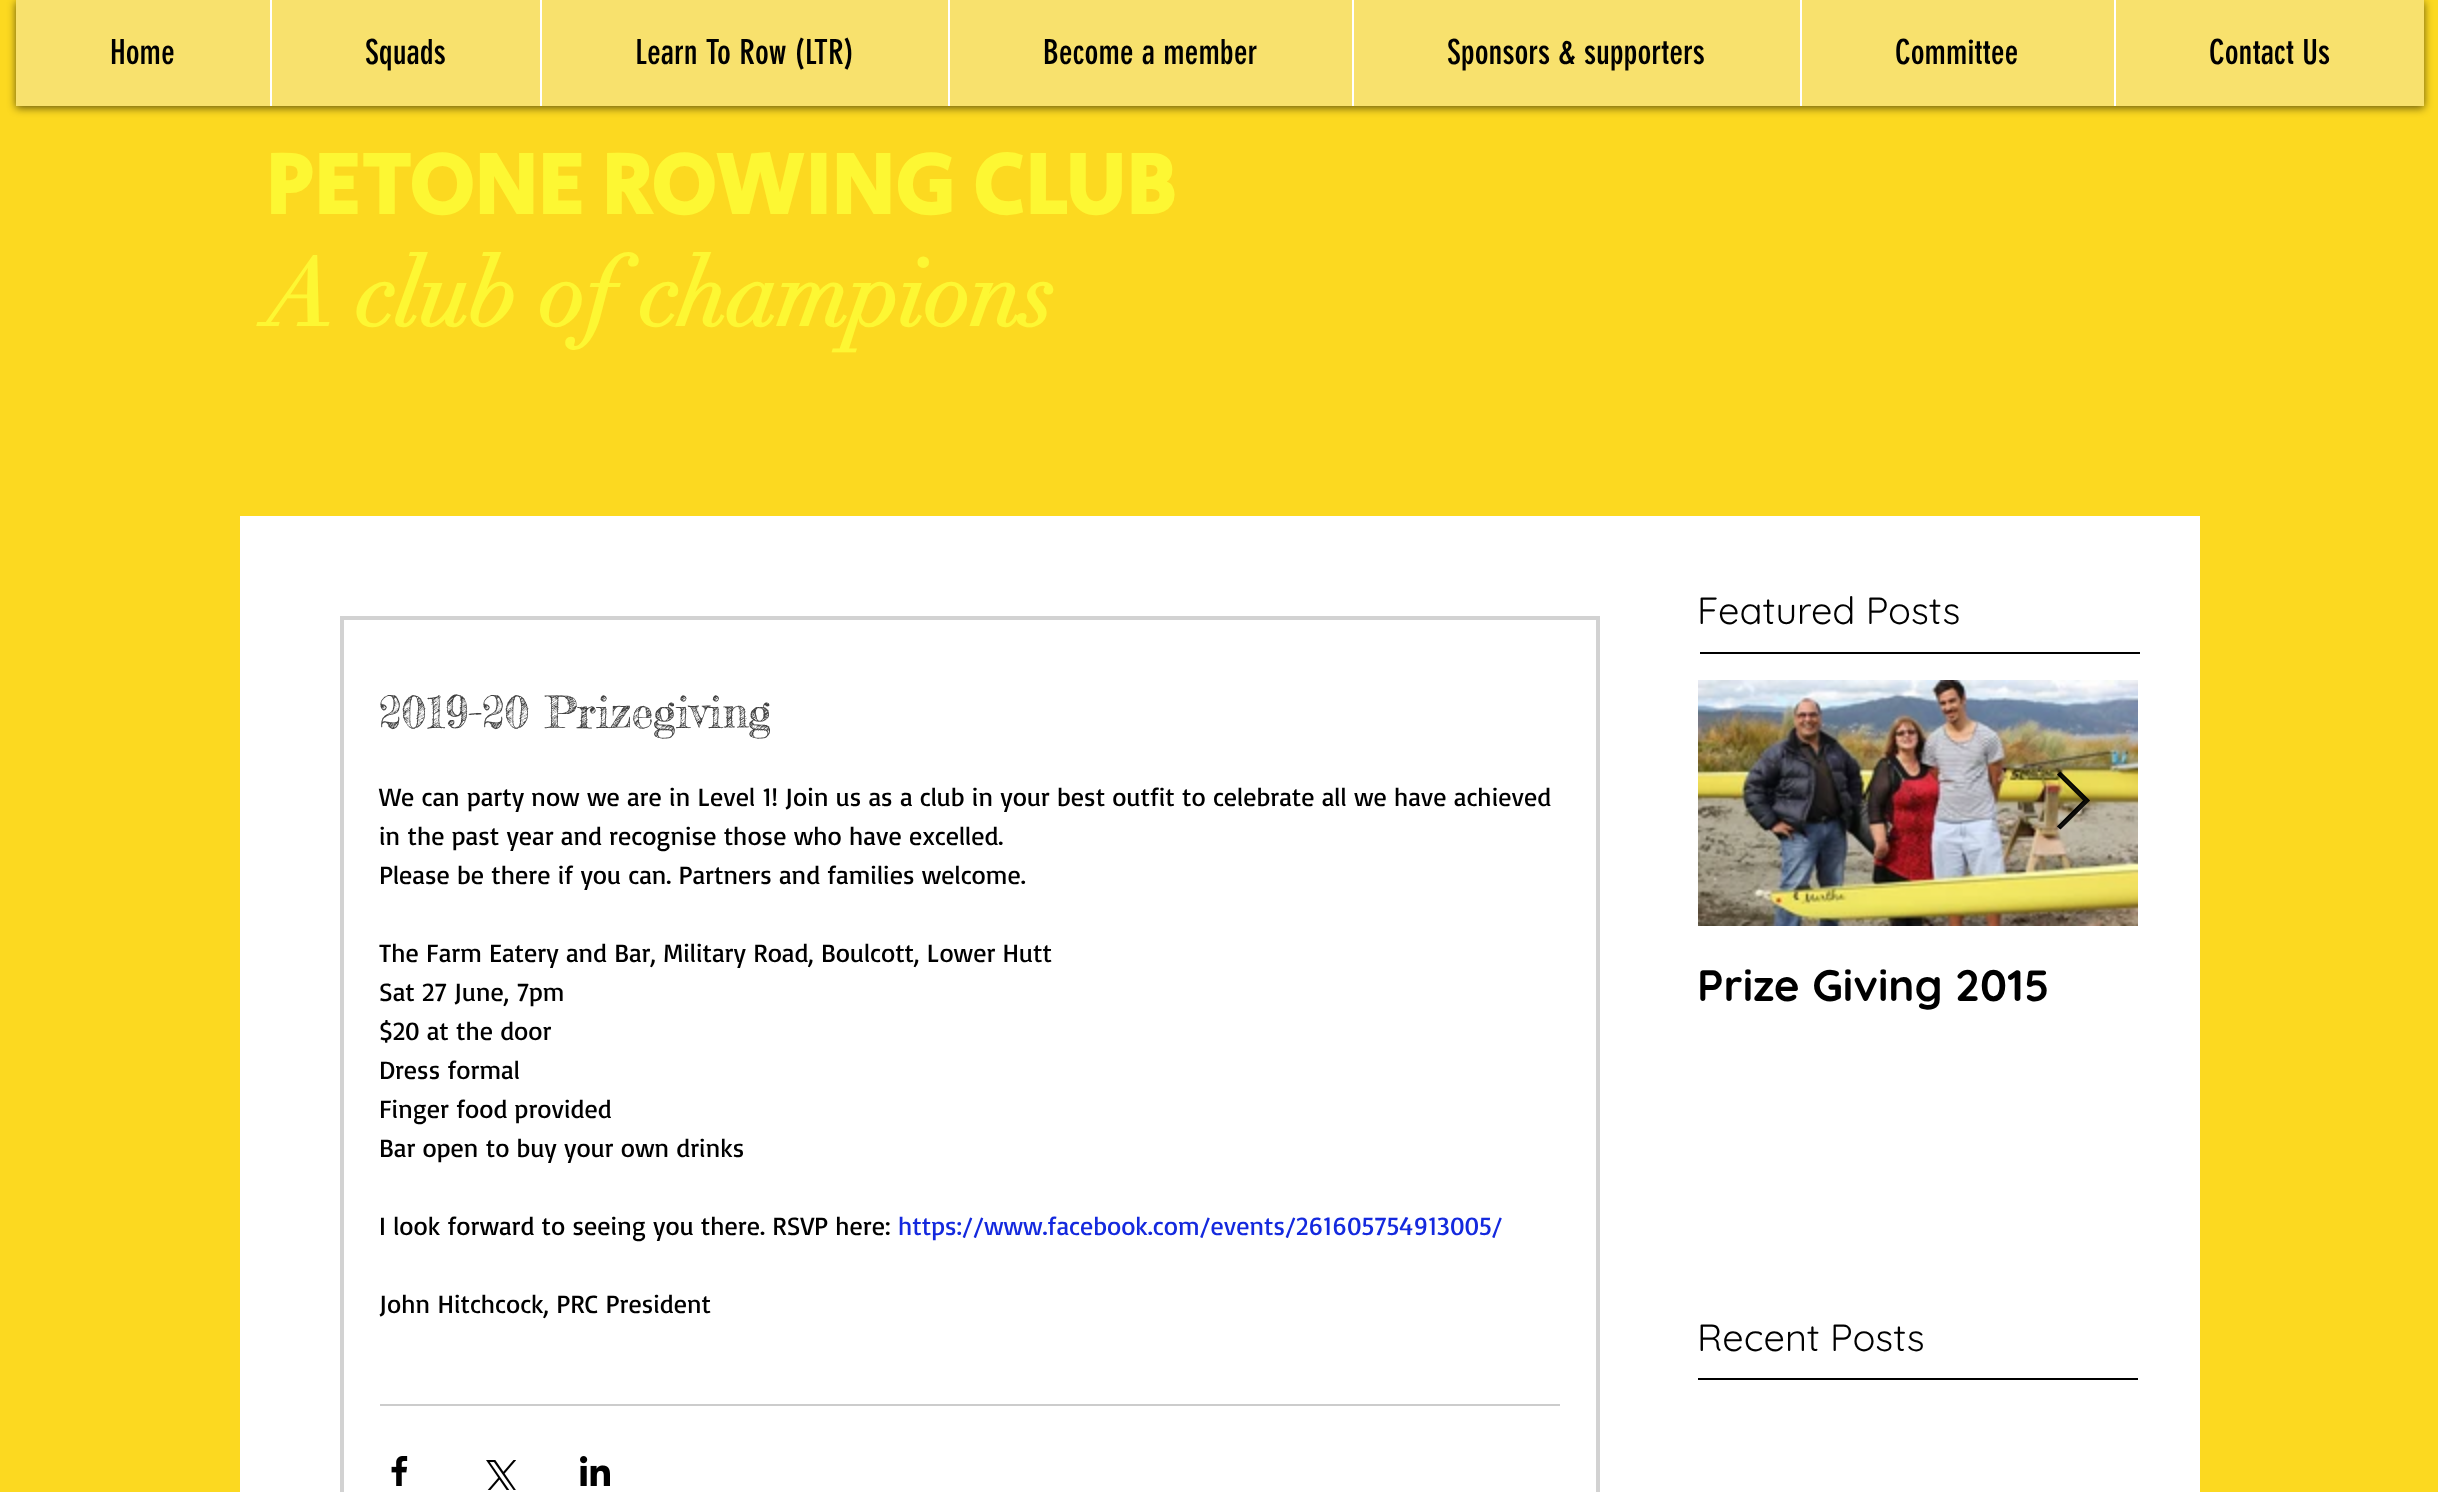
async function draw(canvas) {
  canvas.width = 2438;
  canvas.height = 1492;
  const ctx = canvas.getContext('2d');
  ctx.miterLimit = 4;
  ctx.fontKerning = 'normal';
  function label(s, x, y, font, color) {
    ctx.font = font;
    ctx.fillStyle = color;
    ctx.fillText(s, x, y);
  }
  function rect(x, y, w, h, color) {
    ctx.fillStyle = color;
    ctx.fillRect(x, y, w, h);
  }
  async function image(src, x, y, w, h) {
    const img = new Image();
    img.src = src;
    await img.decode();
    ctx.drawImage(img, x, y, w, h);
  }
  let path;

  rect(0, 0, 2438, 1492, '#fcd920');
  ctx.fillStyle = '#00000099';
  ctx.filter = 'blur(4px)';
  ctx.beginPath();
  ctx.rect(16, 2, 2408, 106);
  ctx.fill();
  ctx.filter = 'none';
  rect(16, 0, 2408, 106, '#f8e16d');
  label('Home', 110, 64, '34px "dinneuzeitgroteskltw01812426"', '#000');
  rect(270, 0, 2, 106, '#fff');
  label('Squads', 365, 64, '34px "dinneuzeitgroteskltw01812426"', '#000');
  rect(540, 0, 2, 106, '#fff');
  label('Learn To Row (LTR)', 635, 64, '34px "dinneuzeitgroteskltw01812426"', '#000');
  rect(948, 0, 2, 106, '#fff');
  label('Become a member', 1043, 64, '34px "dinneuzeitgroteskltw01812426"', '#000');
  rect(1352, 0, 2, 106, '#fff');
  label('Sponsors & supporters', 1447, 64, '34px "dinneuzeitgroteskltw01812426"', '#000');
  rect(1800, 0, 2, 106, '#fff');
  label('Committee', 1895, 64, '34px "dinneuzeitgroteskltw01812426"', '#000');
  rect(2114, 0, 2, 106, '#fff');
  label('Contact Us', 2209, 64, '34px "dinneuzeitgroteskltw01812426"', '#000');
  label('PETONE ROWING CLUB', 265, 214, 'bold 88px Secular One', '#fdf733');
  label('A club of champions', 265, 326, 'bold 94px didot', '#fdf733');
  rect(240, 516, 1960, 976, '#fff');
  label('Featured Posts', 1697, 624, '38px Quicksand', '#000');
  rect(1700, 652, 440, 2, '#000');
  ctx.strokeStyle = '#d2d2d2';
  ctx.lineWidth = 4;
  ctx.strokeRect(342, 618, 1256, 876);
  label('2019-20 Prizegiving', 379, 728, '44px Fredericka the Great', '#404040');
  label('We can party now we are in Level 1! Join us as a club in your best outfit to celebrate all we have achieved', 379, 806, '26px Basic', '#000');
  label('in the past year and recognise those who have excelled.', 379, 845, '26px Basic', '#000');
  label('Please be there if you can. Partners and families welcome.', 379, 884, '26px Basic', '#000');
  label('The Farm Eatery and Bar, Military Road, Boulcott, Lower Hutt', 379, 962, '26px Basic', '#000');
  label('Sat 27 June, 7pm', 379, 1001, '26px Basic', '#000');
  label('$20 at the door', 379, 1040, '26px Basic', '#000');
  label('Dress formal', 379, 1079, '26px Basic', '#000');
  label('Finger food provided', 379, 1118, '26px Basic', '#000');
  label('Bar open to buy your own drinks', 379, 1157, '26px Basic', '#000');
  label('I look forward to seeing you there. RSVP here:', 379, 1235, '26px Basic', '#000');
  label('https://www.facebook.com/events/261605754913005/', 898, 1235, '26px Basic', '#1429de');
  label('John Hitchcock, PRC President', 379, 1313, '26px Basic', '#000');
  rect(380, 1404, 1180, 2, '#ccc');
  await image('assets/img1.png', 391, 1456, 17, 30);
  await image('assets/img2.png', 486, 1460, 30, 30);
  await image('assets/img3.png', 580, 1456, 30, 30);
  await image('assets/img4.png', 1698, 680, 440, 246);
  ctx.fillStyle = '#000000e6';
  path = new Path2D('M2058 775L2060 772L2089 800L2060 829L2058 826L2084 800Z');
  ctx.fill(path);
  path = new Path2D('M2058 774.5L2060.5 772.5L2089 800.5L2060.5 828.5L2058 826.5L2084 800.5Z');
  ctx.strokeStyle = '#000000e6';
  ctx.lineWidth = 1.6;
  ctx.stroke(path);
  label('Prize Giving 2015', 1697, 1001, 'bold 44px Quicksand', '#000');
  label('Recent Posts', 1697, 1351, '38px Quicksand', '#000');
  rect(1698, 1378, 440, 2, '#000');
}

draw(document.querySelector('canvas'));
